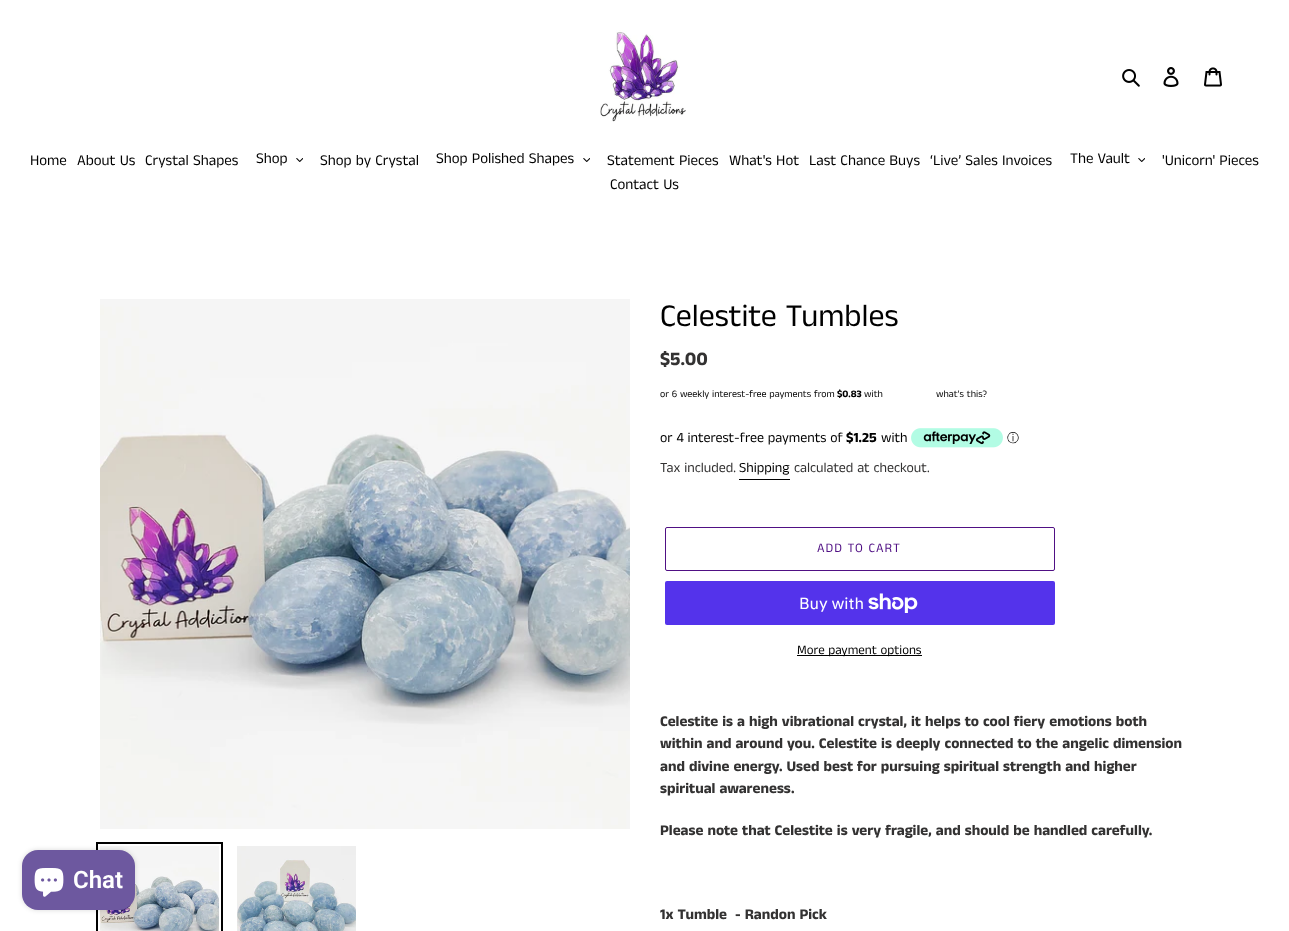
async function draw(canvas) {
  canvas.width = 1289;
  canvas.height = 931;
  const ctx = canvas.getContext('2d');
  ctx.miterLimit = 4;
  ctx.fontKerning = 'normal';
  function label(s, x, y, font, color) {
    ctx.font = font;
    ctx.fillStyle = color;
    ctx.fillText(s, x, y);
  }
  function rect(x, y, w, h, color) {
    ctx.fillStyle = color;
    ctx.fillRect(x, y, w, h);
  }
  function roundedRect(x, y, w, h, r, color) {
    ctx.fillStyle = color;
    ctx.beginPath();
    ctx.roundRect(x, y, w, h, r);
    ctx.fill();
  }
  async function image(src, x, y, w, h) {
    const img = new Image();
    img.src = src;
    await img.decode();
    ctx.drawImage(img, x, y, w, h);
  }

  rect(0, 0, 1289, 931, '#fff');
  await image('assets/img1.png', 600, 30, 86, 92);
  await image('assets/img2.png', 1122, 69, 18, 18);
  await image('assets/img3.png', 1163, 67, 16, 20);
  await image('assets/img4.png', 1204, 67, 18, 20);
  label('Home', 30, 165, '15px Anek Tamil', '#000');
  label('About Us', 77, 165, '15px Anek Tamil', '#000');
  label('Crystal Shapes', 145, 165, '15px Anek Tamil', '#000');
  label('Shop', 256, 163, '15px Anek Tamil', '#000');
  await image('assets/img5.png', 296, 158, 7, 4);
  label('Shop by Crystal', 320, 165, '15px Anek Tamil', '#000');
  label('Shop Polished Shapes', 436, 163, '15px Anek Tamil', '#000');
  await image('assets/img5.png', 583, 158, 7, 4);
  label('Statement Pieces', 607, 165, '15px Anek Tamil', '#000');
  label('What\'s Hot', 729, 165, '15px Anek Tamil', '#000');
  label('Last Chance Buys', 809, 165, '15px Anek Tamil', '#000');
  label('‘Live’ Sales Invoices', 930, 165, '15px Anek Tamil', '#000');
  label('The Vault', 1070, 163, '15px Anek Tamil', '#000');
  await image('assets/img5.png', 1138, 158, 7, 4);
  label('\'Unicorn\' Pieces', 1162, 165, '15px Anek Tamil', '#000');
  label('Contact Us', 610, 189, '15px Anek Tamil', '#000');
  ctx.strokeStyle = '#000';
  ctx.lineWidth = 2;
  ctx.strokeRect(97, 843, 125, 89);
  await image('assets/img8.png', 100, 846, 119, 85);
  ctx.fillStyle = '#00000026';
  ctx.filter = 'blur(2.5px)';
  ctx.beginPath();
  ctx.roundRect(22, 850, 113, 60, 16);
  ctx.fill();
  ctx.filter = 'none';
  roundedRect(22, 850, 113, 60, 16, '#6d589f');
  await image('assets/img6.png', 34, 868, 30, 29);
  label('Chat', 73, 888, '600 24px Roboto', '#fff');
  await image('assets/img7.png', 100, 299, 530, 530);
  await image('assets/img9.png', 237, 846, 119, 85);
  label('Celestite Tumbles', 660, 326, '32px Anek Tamil', '#000');
  label('$5.00', 660, 365, 'bold 19px Anek Tamil', '#333232');
  label('or 6 weekly interest-free payments from', 660, 397, '10px Anek Tamil', '#000');
  label('$0.83', 837, 397, 'bold 10px Anek Tamil', '#000');
  label('with', 864, 397, '10px Anek Tamil', '#000');
  label('what\'s this?', 936, 397, '10px Anek Tamil', '#000');
  label('or 4 interest-free payments of', 660, 442, '14px Anek Tamil', '#000');
  label('$1.25', 846, 442, 'bold 14px Anek Tamil', '#000');
  label('with', 881, 442, '14px Anek Tamil', '#000');
  await image('assets/img10.png', 911, 428, 92, 20);
  label('ⓘ', 1007, 442, '500 12px WenQuanYi Zen Hei', '#000');
  label('Tax included.', 660, 472, '14px Anek Tamil', '#333232');
  label('Shipping', 739, 472, '14px Anek Tamil', '#000');
  rect(739, 479, 51, 1, '#000');
  label('calculated at checkout.', 794, 472, '14px Anek Tamil', '#333232');
  ctx.beginPath();
  ctx.roundRect(665.5, 527.5, 389, 43, 1.5);
  ctx.strokeStyle = '#501084';
  ctx.lineWidth = 1;
  ctx.stroke();
  ctx.letterSpacing = '1px';
  label('ADD TO CART', 817, 552, '13px Anek Tamil', '#501084');
  roundedRect(665, 581, 390, 44, 2, '#5433eb');
  ctx.letterSpacing = '0px';
  label('Buy with', 799, 609, '16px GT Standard', '#fff');
  await image('assets/img11.png', 868, 593, 50, 20);
  rect(797, 655, 125, 1, '#000');
  label('More payment options', 797, 654, '13px Anek Tamil', '#000');
  label('Celestite is a high vibrational crystal, it helps to cool fiery emotions both', 660, 726, 'bold 15px Anek Tamil', '#333232');
  label('within and around you. Celestite is deeply connected to the angelic dimension', 660, 748, 'bold 15px Anek Tamil', '#333232');
  label('and divine energy. Used best for pursuing spiritual strength and higher', 660, 771, 'bold 15px Anek Tamil', '#333232');
  label('spiritual awareness.', 660, 793, 'bold 15px Anek Tamil', '#333232');
  label('Please note that Celestite is very fragile, and should be handled carefully.', 660, 835, 'bold 15px Anek Tamil', '#333232');
  label('1x Tumble  - Randon Pick', 660, 919, 'bold 15px Anek Tamil', '#333232');
}

draw(document.querySelector('canvas'));
